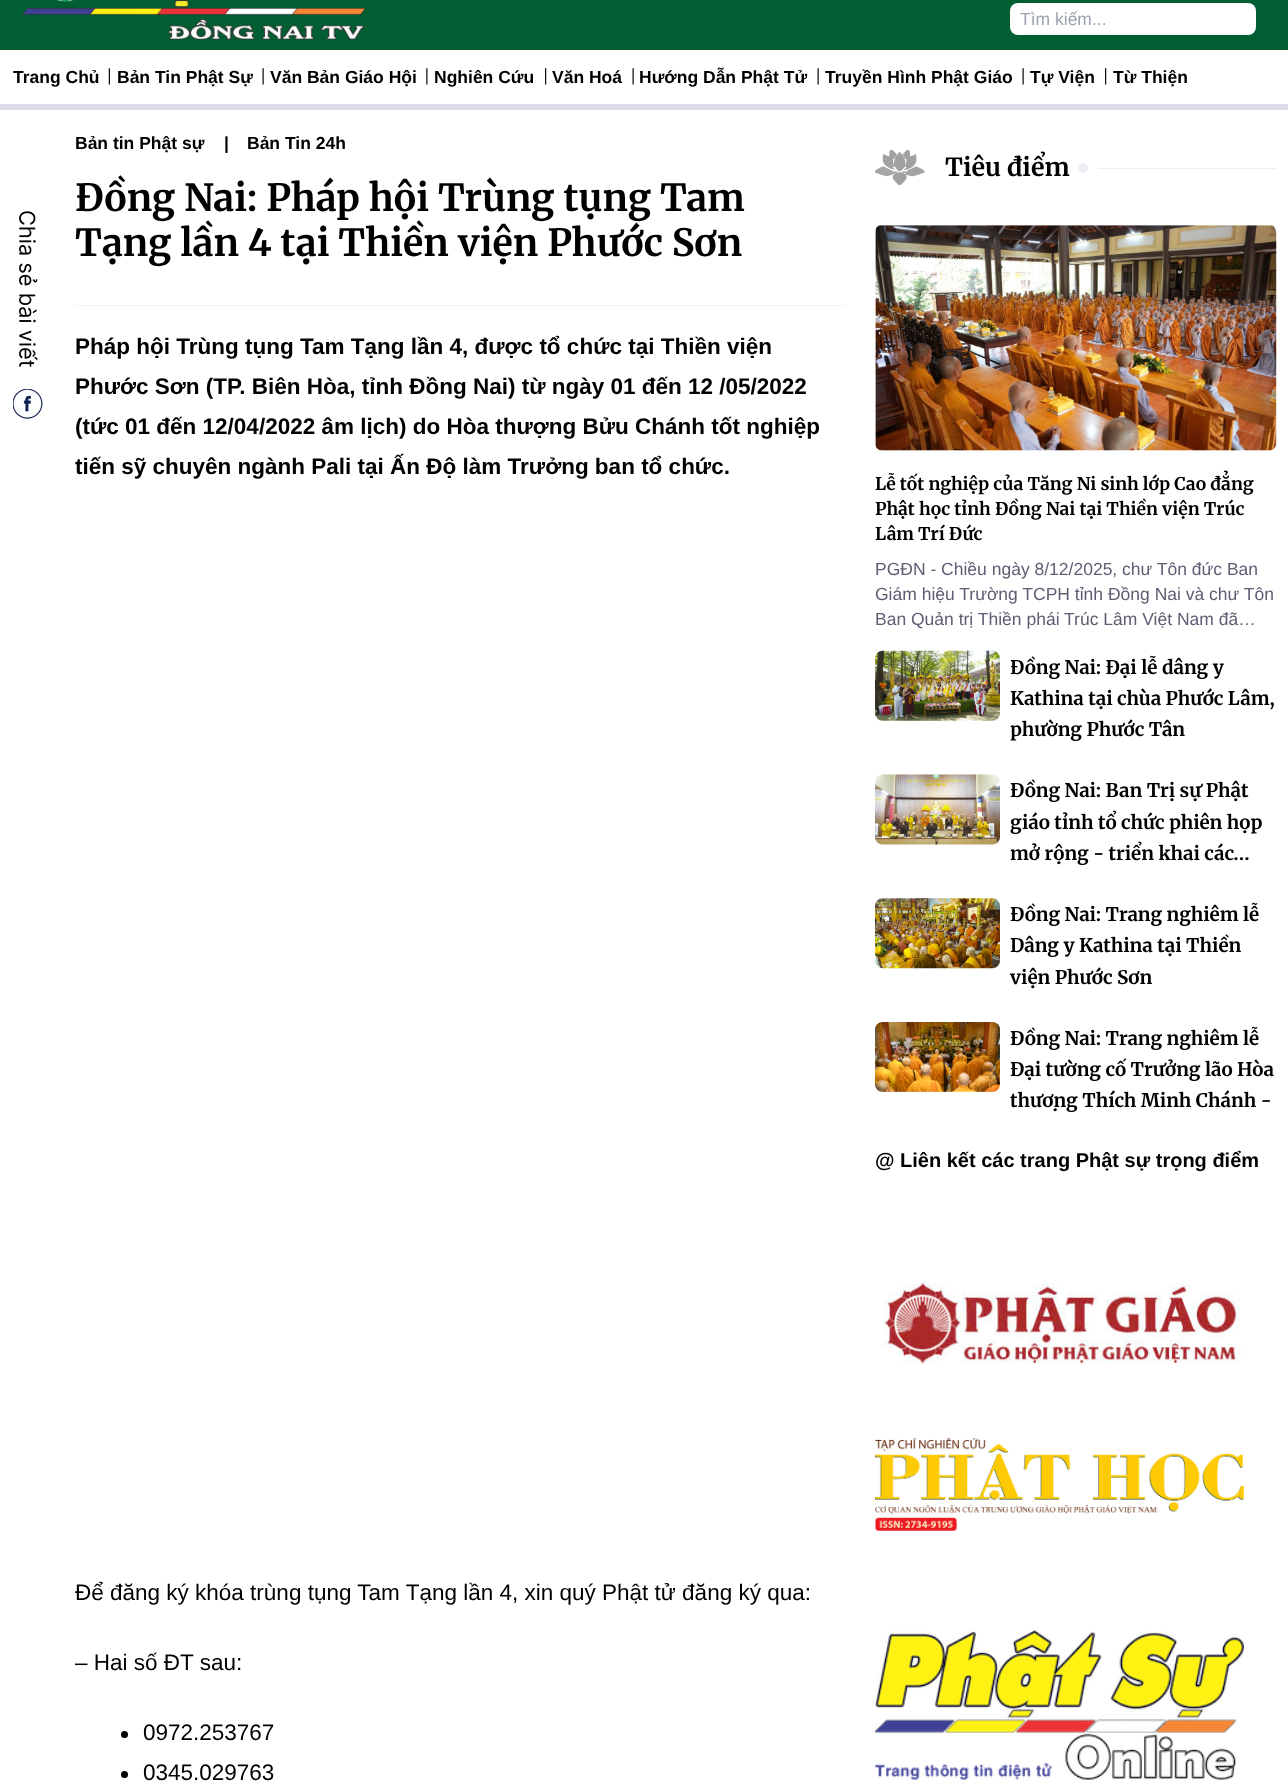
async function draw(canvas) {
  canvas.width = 1288;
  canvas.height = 1789;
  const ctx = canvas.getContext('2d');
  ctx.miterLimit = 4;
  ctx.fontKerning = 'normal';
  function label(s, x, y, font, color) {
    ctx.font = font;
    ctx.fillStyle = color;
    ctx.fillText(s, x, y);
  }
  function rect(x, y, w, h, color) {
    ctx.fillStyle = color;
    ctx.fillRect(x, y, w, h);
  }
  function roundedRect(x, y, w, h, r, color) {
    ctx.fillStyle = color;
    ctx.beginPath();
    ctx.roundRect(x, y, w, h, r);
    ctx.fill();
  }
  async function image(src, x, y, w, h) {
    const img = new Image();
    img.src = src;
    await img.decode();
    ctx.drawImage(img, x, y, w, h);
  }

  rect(0, 0, 1288, 1789, '#005e32');
  await image('assets/img1.png', 22, 0, 344, 40);
  roundedRect(1010, 3, 246, 32, 8, '#fff');
  label('Tìm kiếm...', 1020, 25, '17.5px Liberation Sans', '#9ca3af');
  rect(0, 104, 1288, 6, '#dddde8');
  rect(0, 50, 1288, 54, '#fff');
  label('Trang Chủ', 13, 83, 'bold 17.5px Liberation Sans', '#000');
  await image('assets/img2.png', 108, 68, 2, 17);
  label('Bản Tin Phật Sự', 117, 83, 'bold 17.5px Liberation Sans', '#000');
  await image('assets/img3.png', 262, 68, 2, 17);
  label('Văn Bản Giáo Hội', 270, 83, 'bold 17.5px Liberation Sans', '#000');
  await image('assets/img4.png', 426, 68, 2, 17);
  label('Nghiên Cứu', 434, 83, 'bold 17.5px Liberation Sans', '#000');
  await image('assets/img5.png', 545, 68, 2, 17);
  label('Văn Hoá', 552, 83, 'bold 17.5px Liberation Sans', '#000');
  await image('assets/img3.png', 632, 68, 2, 17);
  label('Hướng Dẫn Phật Tử', 639, 83, 'bold 17.5px Liberation Sans', '#000');
  await image('assets/img3.png', 817, 68, 2, 17);
  label('Truyền Hình Phật Giáo', 825, 83, 'bold 17.5px Liberation Sans', '#000');
  await image('assets/img3.png', 1022, 68, 2, 17);
  label('Tự Viện', 1030, 83, 'bold 17.5px Liberation Sans', '#000');
  await image('assets/img5.png', 1105, 68, 2, 17);
  label('Từ Thiện', 1113, 83, 'bold 17.5px Liberation Sans', '#000');
  rect(0, 110, 1288, 1679, '#fff');
  await image('assets/img6.png', 19, 211, 19, 156);
  await image('assets/img7.png', 13, 389, 30, 30);
  label('Bản tin Phật sự', 75, 149, 'bold 17.5px Liberation Sans', '#000');
  label('|', 224, 149, 'bold 17.5px Liberation Sans', '#000');
  label('Bản Tin 24h', 247, 149, 'bold 17.5px Liberation Sans', '#000');
  label('Đồng Nai: Pháp hội Trùng tụng Tam', 75, 211, 'bold 37.5px Merriweather', '#000');
  label('Tạng lần 4 tại Thiền viện Phước Sơn', 75, 256, 'bold 37.5px Merriweather', '#000');
  rect(75, 305, 770, 1, '#f1f0f5');
  label('Pháp hội Trùng tụng Tam Tạng lần 4, được tổ chức tại Thiền viện', 75, 354, 'bold 22.5px Liberation Sans', '#000');
  label('Phước Sơn (TP. Biên Hòa, tỉnh Đồng Nai) từ ngày 01 đến 12 /05/2022', 75, 394, 'bold 22.5px Liberation Sans', '#000');
  label('(tức 01 đến 12/04/2022 âm lịch) do Hòa thượng Bửu Chánh tốt nghiệp', 75, 434, 'bold 22.5px Liberation Sans', '#000');
  label('tiến sỹ chuyên ngành Pali tại Ấn Độ làm Trưởng ban tổ chức.', 75, 474, 'bold 22.5px Liberation Sans', '#000');
  label('Để đăng ký khóa trùng tụng Tam Tạng lần 4, xin quý Phật tử đăng ký qua:', 75, 1600, '22.5px Liberation Sans', '#000');
  label('– Hai số ĐT sau:', 75, 1670, '22.5px Liberation Sans', '#000');
  ctx.beginPath();
  ctx.arc(124.5, 1734.5, 3.5, 0, 2 * Math.PI);
  ctx.fill();
  label('0972.253767', 143, 1740, '22.5px Liberation Sans', '#000');
  ctx.beginPath();
  ctx.arc(124.5, 1774.5, 3.5, 0, 2 * Math.PI);
  ctx.fill();
  label('0345.029763', 143, 1780, '22.5px Liberation Sans', '#000');
  await image('assets/img8.png', 875, 150, 50, 35);
  label('Tiêu điểm', 945, 176, 'bold 25px Merriweather', '#000');
  ctx.fillStyle = '#eeeef4';
  ctx.beginPath();
  ctx.arc(1083, 168, 5, 0, 2 * Math.PI);
  ctx.fill();
  rect(1098, 168, 178, 1, '#eeeef4');
  await image('assets/img9.png', 875, 225, 402, 226);
  label('Lễ tốt nghiệp của Tăng Ni sinh lớp Cao đẳng', 875, 490, 'bold 17.5px Merriweather', '#000');
  label('Phật học tỉnh Đồng Nai tại Thiền viện Trúc', 875, 515, 'bold 17.5px Merriweather', '#000');
  label('Lâm Trí Đức', 875, 540, 'bold 17.5px Merriweather', '#000');
  label('PGĐN - Chiều ngày 8/12/2025, chư Tôn đức Ban', 875, 575, '17.5px Liberation Sans', '#605d73');
  label('Giám hiệu Trường TCPH tỉnh Đồng Nai và chư Tôn', 875, 600, '17.5px Liberation Sans', '#605d73');
  label('Ban Quản trị Thiền phái Trúc Lâm Việt Nam đã…', 875, 625, '17.5px Liberation Sans', '#605d73');
  await image('assets/img10.png', 875, 650, 125, 71);
  label('Đồng Nai: Đại lễ dâng y', 1010, 674, 'bold 18.75px Merriweather', '#000');
  label('Kathina tại chùa Phước Lâm,', 1010, 705, 'bold 18.75px Merriweather', '#000');
  label('phường Phước Tân', 1010, 736, 'bold 18.75px Merriweather', '#000');
  await image('assets/img11.png', 875, 774, 125, 71);
  label('Đồng Nai: Ban Trị sự Phật', 1010, 797, 'bold 18.75px Merriweather', '#000');
  label('giáo tỉnh tổ chức phiên họp', 1010, 829, 'bold 18.75px Merriweather', '#000');
  label('mở rộng - triển khai các…', 1010, 860, 'bold 18.75px Merriweather', '#000');
  await image('assets/img12.png', 875, 898, 125, 71);
  label('Đồng Nai: Trang nghiêm lễ', 1010, 921, 'bold 18.75px Merriweather', '#000');
  label('Dâng y Kathina tại Thiền', 1010, 952, 'bold 18.75px Merriweather', '#000');
  label('viện Phước Sơn', 1010, 984, 'bold 18.75px Merriweather', '#000');
  await image('assets/img13.png', 875, 1022, 125, 70);
  label('Đồng Nai: Trang nghiêm lễ', 1010, 1045, 'bold 18.75px Merriweather', '#000');
  label('Đại tường cố Trưởng lão Hòa', 1010, 1076, 'bold 18.75px Merriweather', '#000');
  label('thượng Thích Minh Chánh -', 1010, 1107, 'bold 18.75px Merriweather', '#000');
  label('@ Liên kết các trang Phật sự trọng điểm', 875, 1167, 'bold 20px Liberation Sans', '#000');
  await image('assets/img14.png', 883, 1281, 358, 83);
  await image('assets/img15.png', 875, 1438, 369, 93);
  await image('assets/img16.png', 875, 1630, 369, 150);
}

draw(document.querySelector('canvas'));
